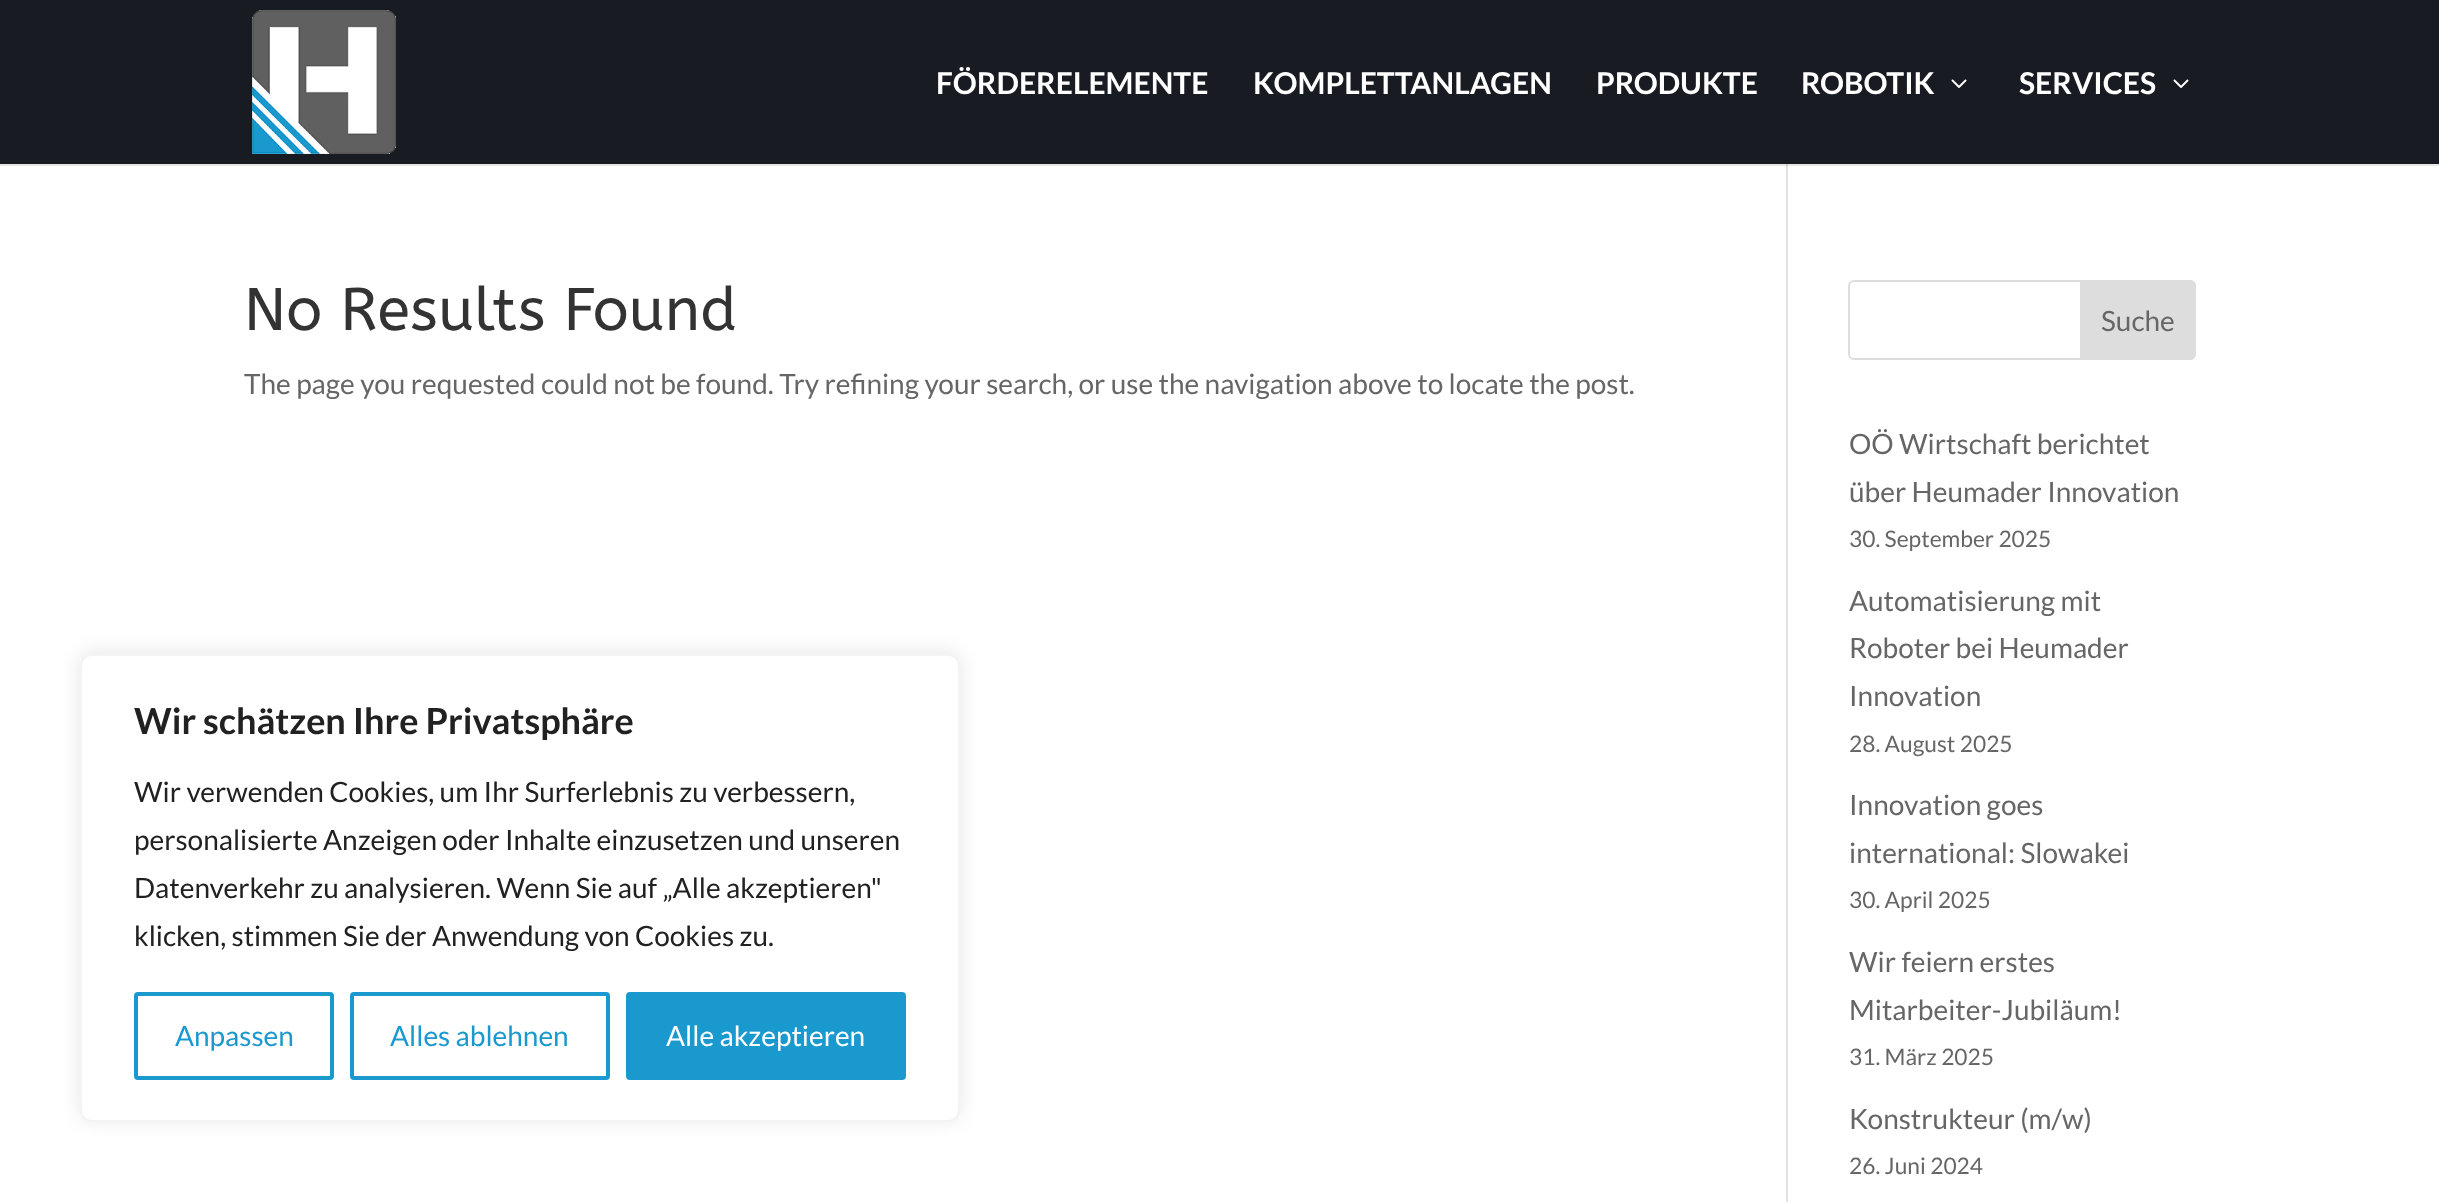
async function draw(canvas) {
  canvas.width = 2439;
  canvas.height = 1202;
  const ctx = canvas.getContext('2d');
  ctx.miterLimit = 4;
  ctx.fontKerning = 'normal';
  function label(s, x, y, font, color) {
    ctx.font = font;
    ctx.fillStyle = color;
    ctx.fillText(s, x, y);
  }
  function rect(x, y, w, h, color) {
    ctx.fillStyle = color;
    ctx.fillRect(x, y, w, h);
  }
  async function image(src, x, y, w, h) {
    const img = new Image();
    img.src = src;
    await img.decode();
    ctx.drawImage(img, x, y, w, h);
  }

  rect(0, 0, 2439, 1202, '#fff');
  rect(0, 164, 2439, 2, '#e6e6e6');
  rect(0, 0, 2439, 164, '#191b23');
  await image('assets/img1.png', 252, 10, 144, 144);
  label('FÖRDERELEMENTE', 936, 94, 'bold 30px Lato', '#fff');
  label('KOMPLETTANLAGEN', 1253, 94, 'bold 30px Lato', '#fff');
  label('PRODUKTE', 1596, 94, 'bold 30px Lato', '#fff');
  label('ROBOTIK', 1801, 94, 'bold 30px Lato', '#fff');
  await image('assets/img2.png', 1951, 79, 16, 9);
  label('SERVICES', 2019, 94, 'bold 30px Lato', '#fff');
  await image('assets/img2.png', 2173, 79, 16, 9);
  rect(1786, 164, 2, 1038, '#e2e2e2');
  rect(1786, 164, 2, 2, '#cbcbcb');
  label('No Results Found', 244, 330, '60px ABeeZee', '#333');
  label('The page you requested could not be found. Try refining your search, or use the navigation above to locate the post.', 244, 394, '28px Lato', '#666');
  ctx.beginPath();
  ctx.roundRect(1849, 281, 346, 78, 5);
  ctx.strokeStyle = '#ddd';
  ctx.lineWidth = 2;
  ctx.stroke();
  ctx.fillStyle = '#ddd';
  ctx.beginPath();
  ctx.roundRect(2081, 281, 114, 78, [0, 5, 5, 0]);
  ctx.fill();
  ctx.stroke();
  label('Suche', 2101, 331, '28px Lato', '#666');
  label('OÖ Wirtschaft berichtet', 1849, 454, '28px Lato', '#666');
  label('über Heumader Innovation', 1849, 502, '28px Lato', '#666');
  label('30. September 2025', 1849, 547, '22.75px Lato', '#666');
  label('Automatisierung mit', 1849, 611, '28px Lato', '#666');
  label('Roboter bei Heumader', 1849, 658, '28px Lato', '#666');
  label('Innovation', 1849, 706, '28px Lato', '#666');
  label('28. August 2025', 1849, 752, '22.75px Lato', '#666');
  label('Innovation goes', 1849, 815, '28px Lato', '#666');
  label('international: Slowakei', 1849, 863, '28px Lato', '#666');
  label('30. April 2025', 1849, 908, '22.75px Lato', '#666');
  label('Wir feiern erstes', 1849, 972, '28px Lato', '#666');
  label('Mitarbeiter-Jubiläum!', 1849, 1020, '28px Lato', '#666');
  label('31. März 2025', 1849, 1065, '22.75px Lato', '#666');
  label('Konstrukteur (m/w)', 1849, 1129, '28px Lato', '#666');
  label('26. Juni 2024', 1849, 1174, '22.75px Lato', '#666');
  ctx.fillStyle = '#acabab4d';
  ctx.filter = 'blur(10px)';
  ctx.beginPath();
  ctx.roundRect(80, 652, 880, 468, 12);
  ctx.fill();
  ctx.filter = 'none';
  ctx.fillStyle = '#fff';
  ctx.beginPath();
  ctx.roundRect(81, 655, 878, 466, 11);
  ctx.fill();
  ctx.strokeStyle = '#f4f4f4';
  ctx.stroke();
  label('Wir schätzen Ihre Privatsphäre', 134, 734, 'bold 36px Lato', '#212121');
  label('Wir verwenden Cookies, um Ihr Surferlebnis zu verbessern,', 134, 802, '28px Lato', '#212121');
  label('personalisierte Anzeigen oder Inhalte einzusetzen und unseren', 134, 850, '28px Lato', '#212121');
  label('Datenverkehr zu analysieren. Wenn Sie auf „Alle akzeptieren"', 134, 898, '28px Lato', '#212121');
  label('klicken, stimmen Sie der Anwendung von Cookies zu.', 134, 946, '28px Lato', '#212121');
  ctx.beginPath();
  ctx.roundRect(136, 994, 196, 84, 2);
  ctx.strokeStyle = '#1a99ce';
  ctx.lineWidth = 4;
  ctx.stroke();
  label('Anpassen', 175, 1046, '28px Lato', '#1a99ce');
  ctx.beginPath();
  ctx.roundRect(352, 994, 256, 84, 2);
  ctx.stroke();
  label('Alles ablehnen', 390, 1046, '28px Lato', '#1a99ce');
  ctx.beginPath();
  ctx.roundRect(628, 994, 276, 84, 2);
  ctx.fill();
  ctx.stroke();
  label('Alle akzeptieren', 666, 1046, '28px Lato', '#fff');
}

draw(document.querySelector('canvas'));
